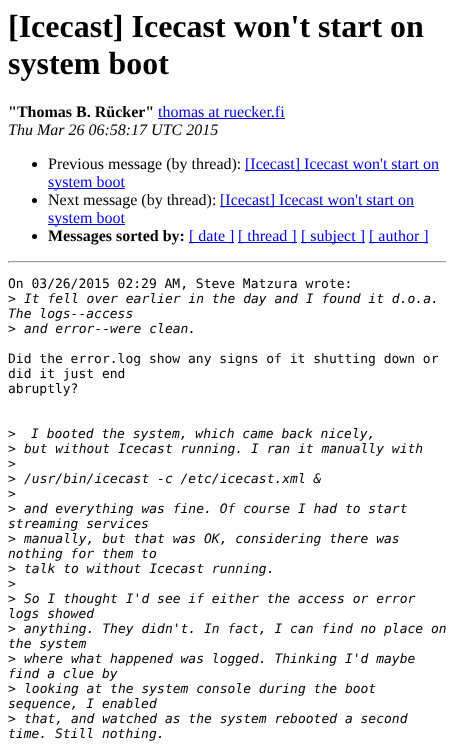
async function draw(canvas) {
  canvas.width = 455;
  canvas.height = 755;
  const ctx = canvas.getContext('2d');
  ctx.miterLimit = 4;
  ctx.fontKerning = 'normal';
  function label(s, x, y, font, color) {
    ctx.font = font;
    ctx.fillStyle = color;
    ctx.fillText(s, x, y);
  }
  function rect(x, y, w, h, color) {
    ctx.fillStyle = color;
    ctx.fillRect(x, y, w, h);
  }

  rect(0, 0, 455, 755, '#fff');
  label('[Icecast] Icecast won\'t start on', 8, 37, 'bold 32px Liberation Serif', '#000');
  label('system boot', 8, 74, 'bold 32px Liberation Serif', '#000');
  label('"Thomas B. Rücker"', 8, 117, 'bold 16px Liberation Serif', '#000');
  label('thomas at ruecker.fi', 158, 117, '16px Liberation Serif', '#00e');
  rect(158, 118, 127, 1, '#00e');
  label('Thu Mar 26 06:58:17 UTC 2015', 8, 135, 'italic 16px Liberation Serif', '#000');
  ctx.beginPath();
  ctx.arc(34.5, 164.5, 2.5, 0, 2 * Math.PI);
  ctx.fill();
  label('Previous message (by thread):', 48, 169, '16px Liberation Serif', '#000');
  rect(245, 170, 194, 1, '#00e');
  label('[Icecast] Icecast won\'t start on', 245, 169, '16px Liberation Serif', '#00e');
  rect(48, 188, 77, 1, '#00e');
  label('system boot', 48, 187, '16px Liberation Serif', '#00e');
  ctx.fillStyle = '#000';
  ctx.beginPath();
  ctx.arc(34.5, 200.5, 2.5, 0, 2 * Math.PI);
  ctx.fill();
  label('Next message (by thread):', 48, 205, '16px Liberation Serif', '#000');
  rect(220, 206, 194, 1, '#00e');
  label('[Icecast] Icecast won\'t start on', 220, 205, '16px Liberation Serif', '#00e');
  rect(48, 224, 77, 1, '#00e');
  label('system boot', 48, 223, '16px Liberation Serif', '#00e');
  ctx.fillStyle = '#000';
  ctx.beginPath();
  ctx.arc(34.5, 236.5, 2.5, 0, 2 * Math.PI);
  ctx.fill();
  label('Messages sorted by:', 48, 241, 'bold 16px Liberation Serif', '#000');
  rect(189, 242, 45, 1, '#00e');
  label('[ date ]', 189, 241, '16px Liberation Serif', '#00e');
  rect(238, 242, 59, 1, '#00e');
  label('[ thread ]', 238, 241, '16px Liberation Serif', '#00e');
  rect(301, 242, 64, 1, '#00e');
  label('[ subject ]', 301, 241, '16px Liberation Serif', '#00e');
  rect(369, 242, 59, 1, '#00e');
  label('[ author ]', 369, 241, '16px Liberation Serif', '#00e');
  rect(8, 261, 439, 1, '#9f9f9f');
  rect(446, 261, 1, 2, '#eee');
  rect(8, 262, 439, 1, '#eee');
  rect(8, 261, 1, 2, '#9f9f9f');
  label('On 03/26/2015 02:29 AM, Steve Matzura wrote:', 8, 288, '13px DejaVu Sans Mono', '#000');
  label('>', 8, 303, '13px DejaVu Sans Mono', '#000');
  label('It fell over earlier in the day and I found it d.o.a.', 24, 303, 'italic 13px DejaVu Sans Mono', '#000');
  label('The logs--access', 8, 318, 'italic 13px DejaVu Sans Mono', '#000');
  label('>', 8, 333, '13px DejaVu Sans Mono', '#000');
  label('and error--were clean.', 24, 333, 'italic 13px DejaVu Sans Mono', '#000');
  label('Did the error.log show any signs of it shutting down or', 8, 363, '13px DejaVu Sans Mono', '#000');
  label('did it just end', 8, 378, '13px DejaVu Sans Mono', '#000');
  label('abruptly?', 8, 393, '13px DejaVu Sans Mono', '#000');
  label('>', 8, 438, '13px DejaVu Sans Mono', '#000');
  label('I booted the system, which came back nicely,', 31, 438, 'italic 13px DejaVu Sans Mono', '#000');
  label('>', 8, 453, '13px DejaVu Sans Mono', '#000');
  label('but without Icecast running. I ran it manually with', 24, 453, 'italic 13px DejaVu Sans Mono', '#000');
  label('>', 8, 468, '13px DejaVu Sans Mono', '#000');
  label('>', 8, 483, '13px DejaVu Sans Mono', '#000');
  label('/usr/bin/icecast -c /etc/icecast.xml &', 24, 483, 'italic 13px DejaVu Sans Mono', '#000');
  label('>', 8, 498, '13px DejaVu Sans Mono', '#000');
  label('>', 8, 513, '13px DejaVu Sans Mono', '#000');
  label('and everything was fine. Of course I had to start', 24, 513, 'italic 13px DejaVu Sans Mono', '#000');
  label('streaming services', 8, 528, 'italic 13px DejaVu Sans Mono', '#000');
  label('>', 8, 543, '13px DejaVu Sans Mono', '#000');
  label('manually, but that was OK, considering there was', 24, 543, 'italic 13px DejaVu Sans Mono', '#000');
  label('nothing for them to', 8, 558, 'italic 13px DejaVu Sans Mono', '#000');
  label('>', 8, 573, '13px DejaVu Sans Mono', '#000');
  label('talk to without Icecast running.', 24, 573, 'italic 13px DejaVu Sans Mono', '#000');
  label('>', 8, 588, '13px DejaVu Sans Mono', '#000');
  label('>', 8, 603, '13px DejaVu Sans Mono', '#000');
  label('So I thought I\'d see if either the access or error', 24, 603, 'italic 13px DejaVu Sans Mono', '#000');
  label('logs showed', 8, 618, 'italic 13px DejaVu Sans Mono', '#000');
  label('>', 8, 633, '13px DejaVu Sans Mono', '#000');
  label('anything. They didn\'t. In fact, I can find no place on', 24, 633, 'italic 13px DejaVu Sans Mono', '#000');
  label('the system', 8, 648, 'italic 13px DejaVu Sans Mono', '#000');
  label('>', 8, 663, '13px DejaVu Sans Mono', '#000');
  label('where what happened was logged. Thinking I\'d maybe', 24, 663, 'italic 13px DejaVu Sans Mono', '#000');
  label('find a clue by', 8, 678, 'italic 13px DejaVu Sans Mono', '#000');
  label('>', 8, 693, '13px DejaVu Sans Mono', '#000');
  label('looking at the system console during the boot', 24, 693, 'italic 13px DejaVu Sans Mono', '#000');
  label('sequence, I enabled', 8, 708, 'italic 13px DejaVu Sans Mono', '#000');
  label('>', 8, 723, '13px DejaVu Sans Mono', '#000');
  label('that, and watched as the system rebooted a second', 24, 723, 'italic 13px DejaVu Sans Mono', '#000');
  label('time. Still nothing.', 8, 738, 'italic 13px DejaVu Sans Mono', '#000');
}

draw(document.querySelector('canvas'));
